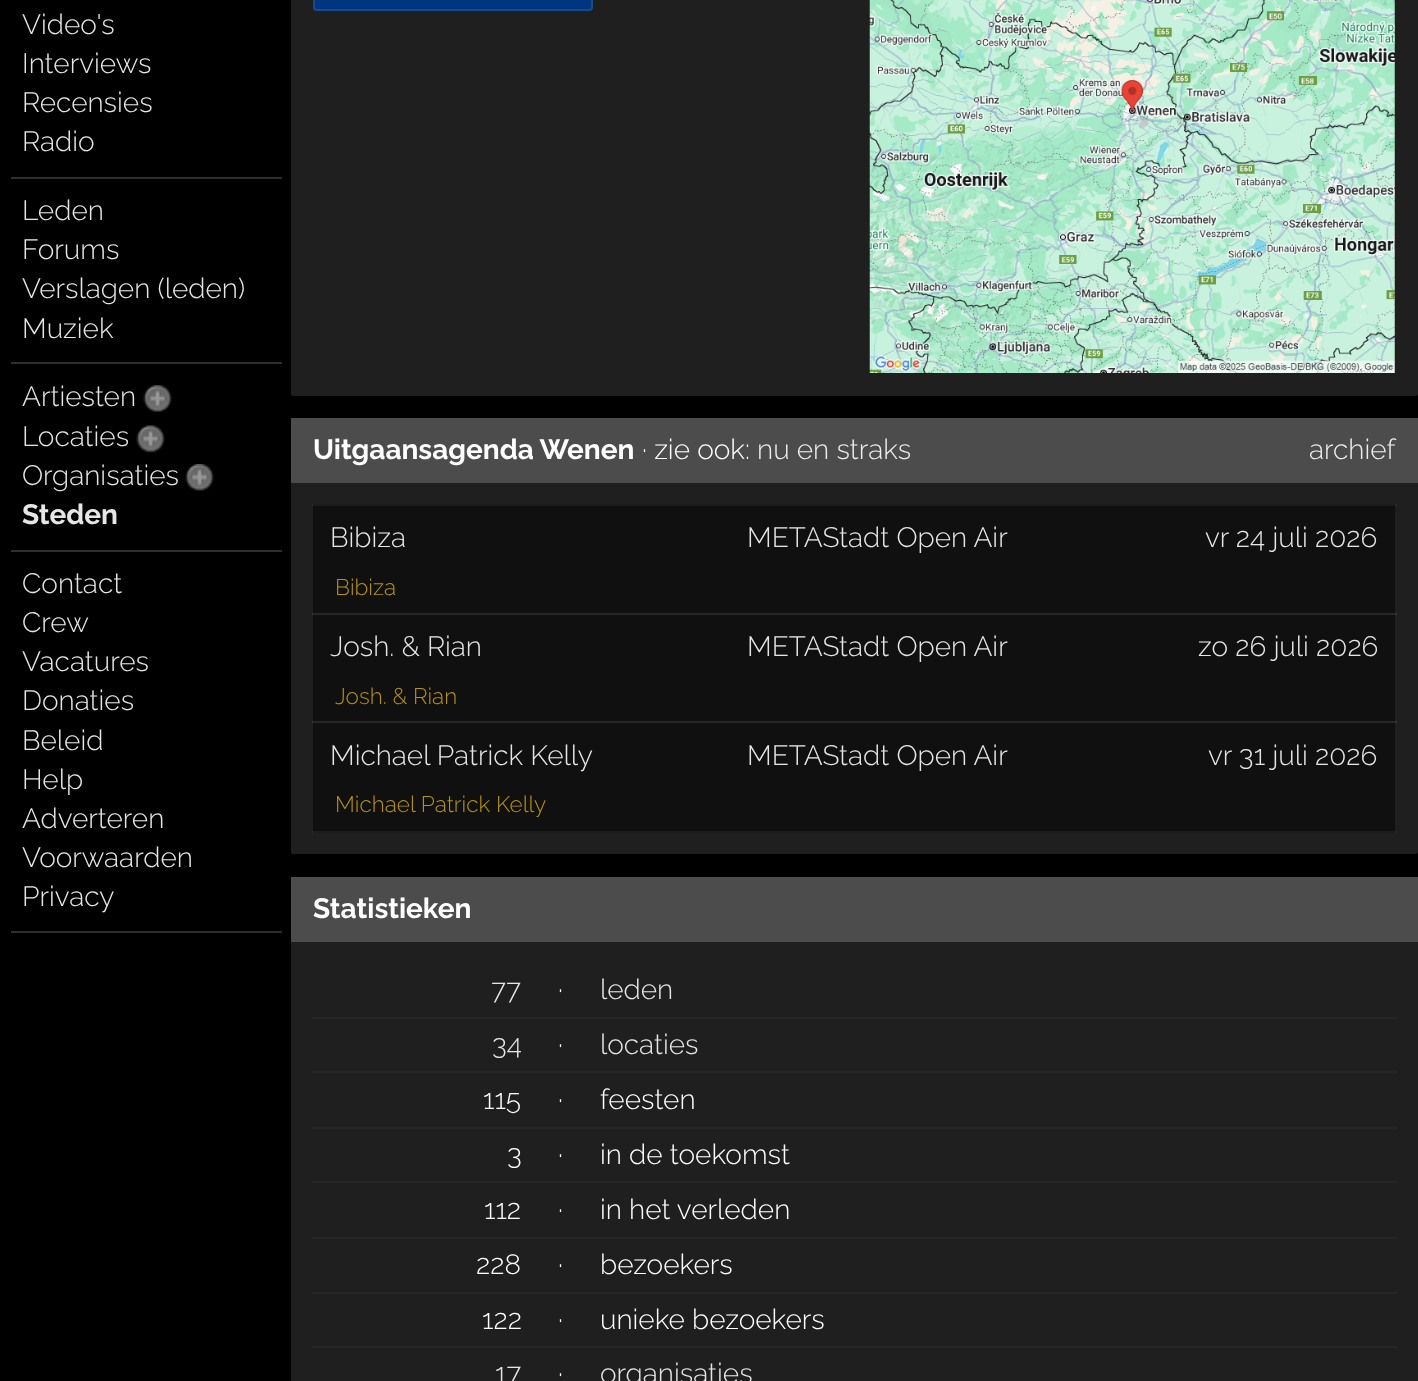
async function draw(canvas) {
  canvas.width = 1418;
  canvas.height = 1381;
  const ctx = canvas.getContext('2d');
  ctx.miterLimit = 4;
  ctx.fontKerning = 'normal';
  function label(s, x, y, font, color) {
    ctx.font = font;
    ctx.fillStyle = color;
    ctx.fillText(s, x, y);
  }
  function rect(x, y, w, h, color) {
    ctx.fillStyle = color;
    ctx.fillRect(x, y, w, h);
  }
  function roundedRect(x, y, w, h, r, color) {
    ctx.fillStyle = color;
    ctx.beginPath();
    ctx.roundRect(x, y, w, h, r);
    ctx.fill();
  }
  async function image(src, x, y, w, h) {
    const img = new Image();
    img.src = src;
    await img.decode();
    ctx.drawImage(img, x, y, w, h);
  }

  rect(0, 0, 1418, 1381, '#000');
  label('Video\'s', 22, 34, '300 28px Raleway', '#e6e6e6');
  label('Interviews', 22, 73, '300 28px Raleway', '#e6e6e6');
  label('Recensies', 22, 112, '300 28px Raleway', '#e6e6e6');
  label('Radio', 22, 151, '300 28px Raleway', '#e6e6e6');
  rect(11, 177, 271, 2, '#2e2e2e');
  label('Leden', 22, 220, '300 28px Raleway', '#e6e6e6');
  label('Forums', 22, 259, '300 28px Raleway', '#e6e6e6');
  label('Verslagen (leden)', 22, 298, '300 28px Raleway', '#e6e6e6');
  label('Muziek', 22, 338, '300 28px Raleway', '#e6e6e6');
  rect(11, 362, 271, 2, '#2e2e2e');
  label('Artiesten', 22, 406, '300 28px Raleway', '#e6e6e6');
  await image('assets/img1.png', 143, 385, 29, 27);
  label('Locaties', 22, 446, '300 28px Raleway', '#e6e6e6');
  await image('assets/img2.png', 136, 425, 29, 28);
  label('Organisaties', 22, 485, '300 28px Raleway', '#e6e6e6');
  await image('assets/img3.png', 185, 464, 29, 27);
  label('Steden', 22, 524, 'bold 28px Raleway', '#e6e6e6');
  rect(11, 550, 271, 2, '#2e2e2e');
  label('Contact', 22, 593, '300 28px Raleway', '#e6e6e6');
  label('Crew', 22, 632, '300 28px Raleway', '#e6e6e6');
  label('Vacatures', 22, 671, '300 28px Raleway', '#e6e6e6');
  label('Donaties', 22, 710, '300 28px Raleway', '#e6e6e6');
  label('Beleid', 22, 750, '300 28px Raleway', '#e6e6e6');
  label('Help', 22, 789, '300 28px Raleway', '#e6e6e6');
  label('Adverteren', 22, 828, '300 28px Raleway', '#e6e6e6');
  label('Voorwaarden', 22, 867, '300 28px Raleway', '#e6e6e6');
  label('Privacy', 22, 906, '300 28px Raleway', '#e6e6e6');
  rect(11, 931, 271, 2, '#2e2e2e');
  roundedRect(291, -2, 1127, 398, 2, '#1f1f1f');
  roundedRect(313, -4, 280, 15, 4, '#003680');
  ctx.beginPath();
  ctx.roundRect(314, -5, 278, 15, 3);
  ctx.strokeStyle = '#ffffff1a';
  ctx.lineWidth = 2;
  ctx.stroke();
  await image('assets/img4.png', 869, 0, 526, 373);
  roundedRect(291, 418, 1127, 436, 2, '#1f1f1f');
  rect(312, 504, 1085, 2, '#2a2a2a');
  rect(312, 613, 1085, 2, '#353535');
  rect(312, 831, 1085, 2, '#2a2a2a');
  rect(312, 721, 1085, 2, '#353535');
  rect(291, 418, 1127, 65, '#4c4c4c');
  label('Uitgaansagenda Wenen', 313, 459, 'bold 28px Raleway', '#fff');
  label('· zie ook:', 642, 459, '300 28px Raleway', '#fff');
  label('nu en straks', 757, 459, '300 28px Raleway', '#ededed');
  label('archief', 1309, 459, '300 28px Raleway', '#ededed');
  rect(313, 506, 1082, 325, '#101010');
  rect(313, 504, 1082, 2, '#1c1c1c');
  rect(313, 613, 1082, 2, '#272727');
  rect(313, 831, 1082, 2, '#1c1c1c');
  rect(313, 721, 1082, 2, '#272727');
  label('Bibiza', 330, 547, '300 28px Raleway', '#e6e6e6');
  label('METAStadt Open Air', 747, 547, '300 28px Raleway', '#e6e6e6');
  label('vr 24 juli 2026', 1205, 547, '300 28px Raleway', '#e6e6e6');
  label('Bibiza', 335, 595, '300 22.5px Raleway', '#b79405');
  label('Josh. & Rian', 330, 656, '300 28px Raleway', '#e6e6e6');
  label('METAStadt Open Air', 747, 656, '300 28px Raleway', '#e6e6e6');
  label('zo 26 juli 2026', 1198, 656, '300 28px Raleway', '#e6e6e6');
  label('Josh. & Rian', 335, 704, '300 22.5px Raleway', '#b79405');
  label('Michael Patrick Kelly', 330, 765, '300 28px Raleway', '#e6e6e6');
  label('METAStadt Open Air', 747, 765, '300 28px Raleway', '#e6e6e6');
  label('vr 31 juli 2026', 1208, 765, '300 28px Raleway', '#e6e6e6');
  label('Michael Patrick Kelly', 335, 812, '300 22.5px Raleway', '#b79405');
  rect(291, 942, 1127, 439, '#1f1f1f');
  rect(291, 877, 1127, 65, '#4c4c4c');
  label('Statistieken', 313, 918, 'bold 28px Raleway', '#fff');
  rect(312, 1017, 1085, 2, '#262626');
  label('77', 491, 999, '300 28px Raleway', '#e6e6e6');
  label('·', 558, 999, '300 28px Raleway', '#fff');
  label('leden', 600, 999, '300 28px Raleway', '#e6e6e6');
  rect(312, 1071, 1085, 2, '#262626');
  label('34', 492, 1054, '300 28px Raleway', '#e6e6e6');
  label('·', 558, 1054, '300 28px Raleway', '#fff');
  label('locaties', 600, 1054, '300 28px Raleway', '#e6e6e6');
  rect(312, 1127, 1085, 2, '#262626');
  label('115', 483, 1109, '300 28px Raleway', '#fff');
  label('·', 558, 1109, '300 28px Raleway', '#fff');
  label('feesten', 600, 1109, '300 28px Raleway', '#fff');
  rect(312, 1181, 1085, 2, '#262626');
  label('3', 507, 1164, '300 28px Raleway', '#fff');
  label('·', 558, 1164, '300 28px Raleway', '#fff');
  label('in de toekomst', 600, 1164, '300 28px Raleway', '#fff');
  rect(312, 1237, 1085, 2, '#262626');
  label('112', 484, 1219, '300 28px Raleway', '#fff');
  label('·', 558, 1219, '300 28px Raleway', '#fff');
  label('in het verleden', 600, 1219, '300 28px Raleway', '#fff');
  rect(312, 1292, 1085, 2, '#262626');
  label('228', 476, 1274, '300 28px Raleway', '#fff');
  label('·', 558, 1274, '300 28px Raleway', '#fff');
  label('bezoekers', 600, 1274, '300 28px Raleway', '#fff');
  rect(312, 1346, 1085, 2, '#262626');
  label('122', 482, 1329, '300 28px Raleway', '#fff');
  label('·', 558, 1329, '300 28px Raleway', '#fff');
  label('unieke bezoekers', 600, 1329, '300 28px Raleway', '#fff');
  label('17', 495, 1383, '300 28px Raleway', '#e6e6e6');
  label('·', 558, 1383, '300 28px Raleway', '#fff');
  label('organisaties', 600, 1383, '300 28px Raleway', '#e6e6e6');
}

draw(document.querySelector('canvas'));
